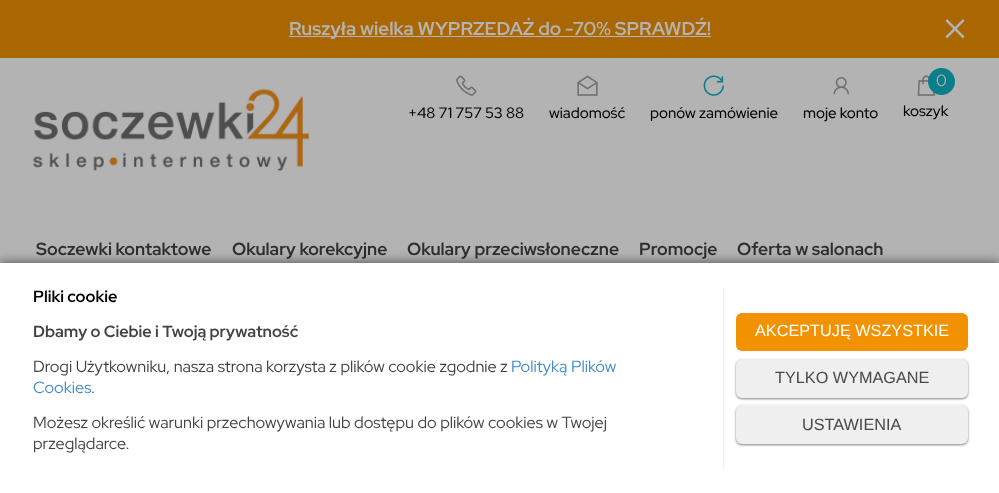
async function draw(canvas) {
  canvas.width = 999;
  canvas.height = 493;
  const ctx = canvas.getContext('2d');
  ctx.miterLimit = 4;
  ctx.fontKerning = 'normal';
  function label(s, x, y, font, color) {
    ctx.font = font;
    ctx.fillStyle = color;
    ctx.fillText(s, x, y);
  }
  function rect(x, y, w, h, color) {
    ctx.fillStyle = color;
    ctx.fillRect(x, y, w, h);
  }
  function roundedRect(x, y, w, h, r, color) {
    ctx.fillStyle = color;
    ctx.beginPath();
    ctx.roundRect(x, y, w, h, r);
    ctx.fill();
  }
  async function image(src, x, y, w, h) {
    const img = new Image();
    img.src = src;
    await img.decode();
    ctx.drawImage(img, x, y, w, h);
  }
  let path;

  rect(0, 0, 999, 493, '#b3b3b3');
  rect(0, 0, 999, 58, '#a60');
  rect(289, 36, 422, 1, '#b3b3b3');
  label('Ruszyła wielka WYPRZEDAŻ do -70% SPRAWDŹ!', 289, 35, 'bold 18.75px Red Hat Display', '#b3b3b3');
  path = new Path2D('M947 19L964.5 36.5L963 38.5L945.5 21Z');
  ctx.fill(path);
  path = new Path2D('M963 19L964.5 21L947 38.5L945.5 36.5Z');
  ctx.fill(path);
  await image('assets/img1.png', 33, 89, 276, 82);
  await image('assets/img2.png', 456, 75, 21, 21);
  label('+48 71 757 53 88', 408, 118, '500 15px Red Hat Display', '#000');
  await image('assets/img3.png', 577, 75, 21, 21);
  label('wiadomość', 549, 118, '500 15px Red Hat Display', '#000');
  await image('assets/img4.png', 703, 75, 21, 21);
  label('ponów zamówienie', 650, 118, '500 15px Red Hat Display', '#000');
  await image('assets/img5.png', 833, 77, 16, 18);
  label('moje konto', 803, 118, '500 15px Red Hat Display', '#000');
  await image('assets/img6.png', 917, 75, 18, 21);
  ctx.fillStyle = '#0b7e8c';
  ctx.beginPath();
  ctx.arc(941.5, 81.5, 13.5, 0, 2 * Math.PI);
  ctx.fill();
  label('0', 936, 86, '16.25px Red Hat Display', '#b3b3b3');
  label('koszyk', 903, 116, '500 15px Red Hat Display', '#000');
  label('Soczewki kontaktowe', 36, 255, 'bold 17.5px Red Hat Display', '#2e2e2e');
  label('Okulary korekcyjne', 232, 255, 'bold 17.5px Red Hat Display', '#2e2e2e');
  label('Okulary przeciwsłoneczne', 407, 255, 'bold 17.5px Red Hat Display', '#2e2e2e');
  label('Promocje', 639, 255, 'bold 17.5px Red Hat Display', '#2e2e2e');
  label('Oferta w salonach', 737, 255, 'bold 17.5px Red Hat Display', '#2e2e2e');
  ctx.fillStyle = '#00000099';
  ctx.filter = 'blur(6px)';
  ctx.beginPath();
  ctx.rect(0, 263, 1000, 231);
  ctx.fill();
  ctx.filter = 'none';
  rect(0, 263, 999, 230, '#fff');
  rect(723, 288, 1, 181, '#eee');
  label('Pliki cookie', 33, 302, 'bold 16.25px Red Hat Display', '#000');
  label('Dbamy o Ciebie i Twoją prywatność', 33, 337, 'bold 16.25px Red Hat Display', '#424242');
  label('Drogi Użytkowniku, nasza strona korzysta z plików cookie zgodnie z', 33, 372, '16.25px Red Hat Display', '#424242');
  label('Polityką Plików', 511, 372, '16.25px Red Hat Display', '#428bca');
  label('Cookies', 33, 393, '16.25px Red Hat Display', '#428bca');
  label('.', 91, 393, '16.25px Red Hat Display', '#424242');
  label('Możesz określić warunki przechowywania lub dostępu do plików cookies w Twojej', 33, 428, '16.25px Red Hat Display', '#424242');
  label('przeglądarce.', 33, 449, '16.25px Red Hat Display', '#424242');
  roundedRect(736, 313, 232, 38, 6, '#f39200');
  label('AKCEPTUJĘ WSZYSTKIE', 755, 336, '16.25px Liberation Sans', '#fff');
  ctx.fillStyle = '#00000080';
  ctx.filter = 'blur(1px)';
  ctx.beginPath();
  ctx.roundRect(736, 360, 232, 39, 6);
  ctx.fill();
  ctx.filter = 'none';
  roundedRect(736, 359, 232, 39, 6, '#efefef');
  label('TYLKO WYMAGANE', 775, 383, '16.25px Liberation Sans', '#484848');
  ctx.fillStyle = '#00000080';
  ctx.filter = 'blur(1px)';
  ctx.beginPath();
  ctx.roundRect(736, 406, 232, 39, 6);
  ctx.fill();
  ctx.filter = 'none';
  roundedRect(736, 405, 232, 39, 6, '#efefef');
  label('USTAWIENIA', 802, 430, '16.25px Liberation Sans', '#484848');
}

draw(document.querySelector('canvas'));
